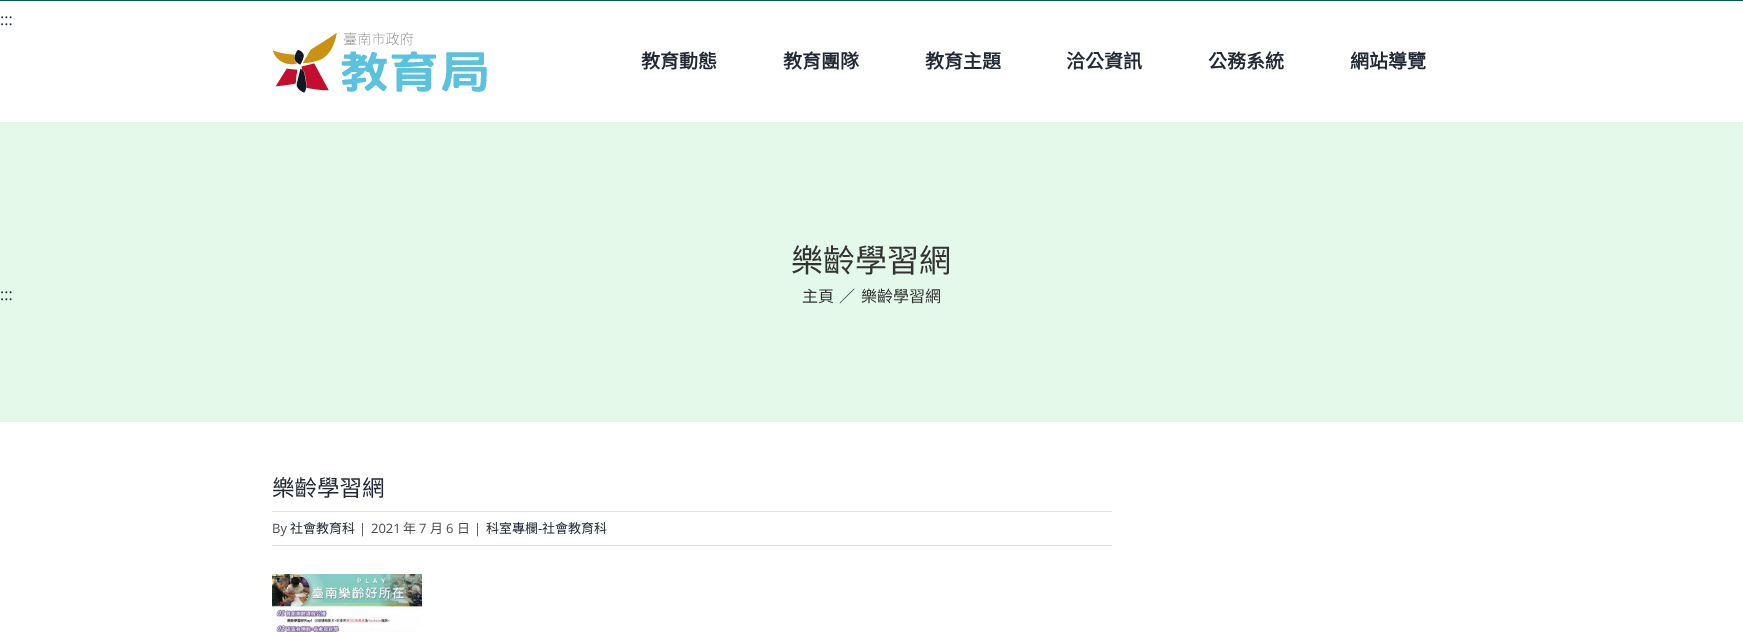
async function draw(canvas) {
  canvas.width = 1743;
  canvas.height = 632;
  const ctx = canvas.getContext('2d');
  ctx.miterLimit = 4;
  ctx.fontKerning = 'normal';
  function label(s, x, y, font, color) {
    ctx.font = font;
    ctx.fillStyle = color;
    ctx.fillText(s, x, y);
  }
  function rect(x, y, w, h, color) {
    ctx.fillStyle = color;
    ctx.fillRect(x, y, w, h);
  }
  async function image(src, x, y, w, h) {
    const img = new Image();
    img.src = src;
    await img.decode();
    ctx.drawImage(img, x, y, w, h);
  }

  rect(0, 0, 1743, 632, '#fff');
  label(':::', 0, 25, '16px Open Sans', '#212934');
  rect(0, 0, 1743, 1, '#00595e');
  await image('assets/img1.png', 273, 32, 214, 61);
  label('教育動態', 641, 68, 'bold 19px Noto Sans CJK TC', '#212934');
  label('教育團隊', 783, 68, 'bold 19px Noto Sans CJK TC', '#212934');
  label('教育主題', 925, 68, 'bold 19px Noto Sans CJK TC', '#212934');
  label('洽公資訊', 1066, 68, 'bold 19px Noto Sans CJK TC', '#212934');
  label('公務系統', 1208, 68, 'bold 19px Noto Sans CJK TC', '#212934');
  label('網站導覽', 1350, 68, 'bold 19px Noto Sans CJK TC', '#212934');
  rect(0, 122, 1743, 300, '#e5f9ea');
  label('樂齡學習網', 791, 272, '100 32px Noto Sans TC', '#333');
  label('主頁', 802, 302, '16px Noto Sans CJK TC', '#333');
  label('／', 839, 302, '16px Noto Sans CJK TC', '#333');
  label('樂齡學習網', 861, 302, '16px Noto Sans CJK TC', '#333');
  label(':::', 0, 300, '16px Open Sans', '#212934');
  label('樂齡學習網', 272, 496, '100 22.5px Noto Sans TC', '#212934');
  rect(272, 511, 840, 1, '#e2e2e2');
  rect(272, 545, 840, 1, '#e2e2e2');
  label('By', 272, 533, '13px Open Sans', '#4a4e57');
  label('社會教育科', 290, 533, '13px Noto Sans CJK TC', '#212934');
  label('|', 359, 533, '13px Open Sans', '#4a4e57');
  label('2021', 371, 533, '13px Open Sans', '#4a4e57');
  label('年', 403, 533, '13px Noto Sans CJK TC', '#4a4e57');
  label('7', 419, 533, '13px Open Sans', '#4a4e57');
  label('月', 430, 533, '13px Noto Sans CJK TC', '#4a4e57');
  label('6', 446, 533, '13px Open Sans', '#4a4e57');
  label('日', 457, 533, '13px Noto Sans CJK TC', '#4a4e57');
  label('|', 474, 533, '13px Open Sans', '#4a4e57');
  label('科室專欄', 486, 533, '13px Noto Sans CJK TC', '#212934');
  label('-', 538, 533, '13px Open Sans', '#212934');
  label('社會教育科', 542, 533, '13px Noto Sans CJK TC', '#212934');
  await image('assets/img2.png', 272, 574, 150, 58);
}

draw(document.querySelector('canvas'));
